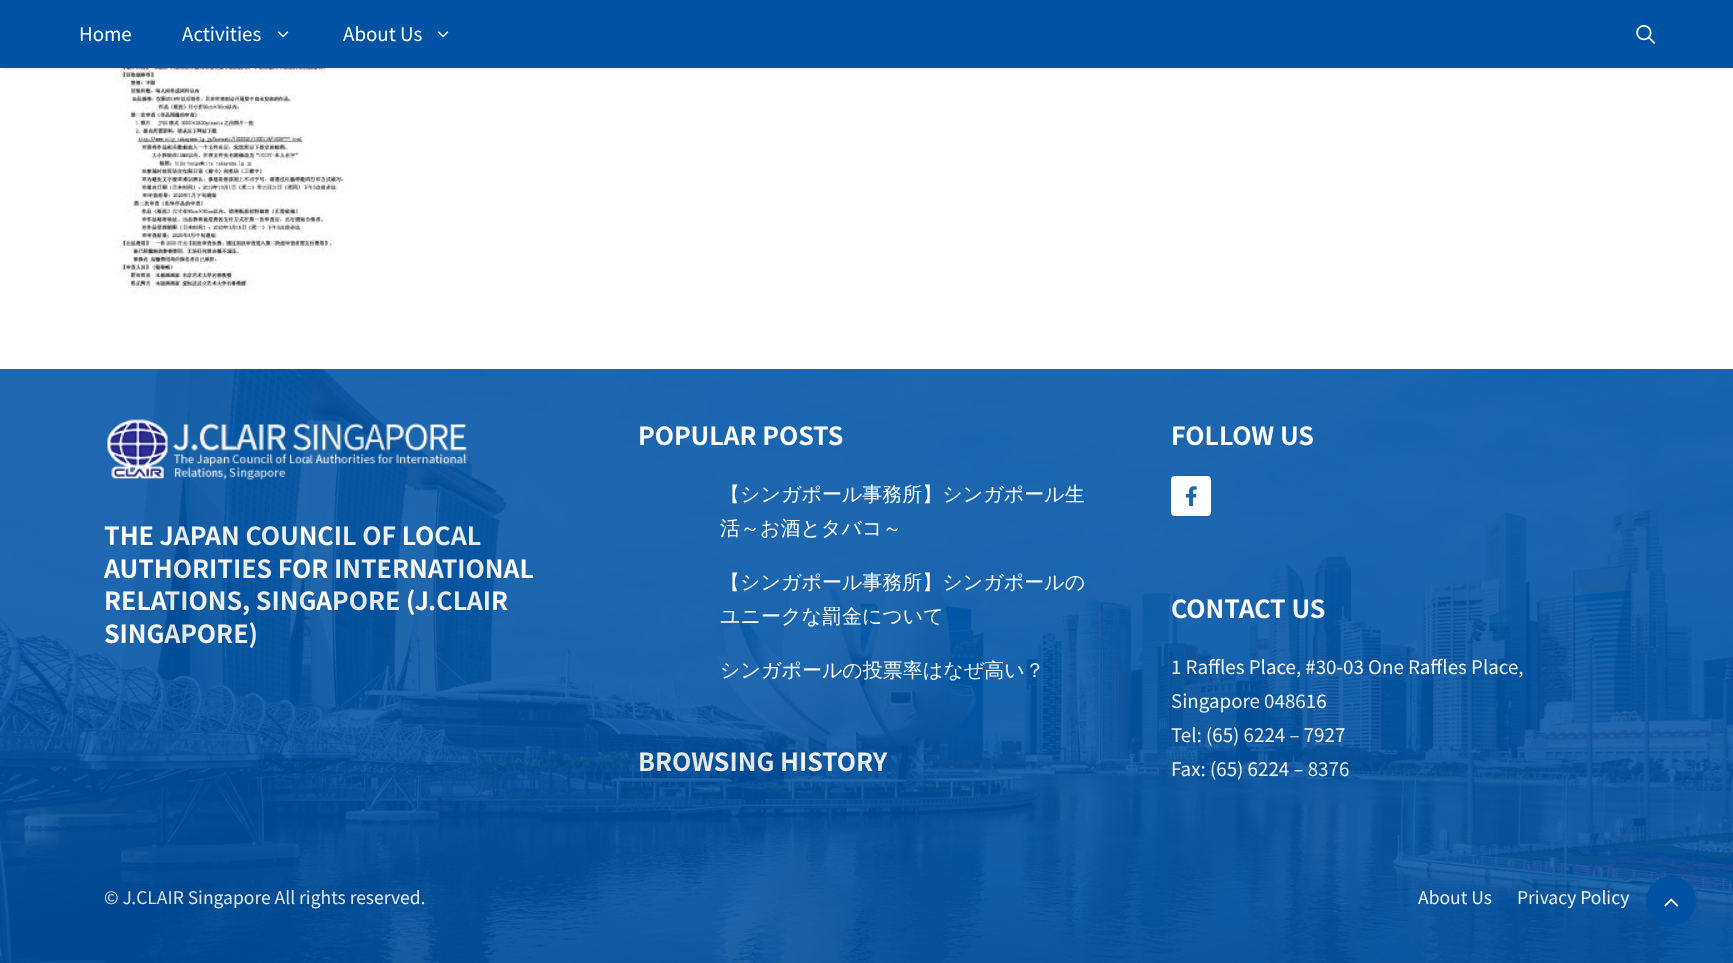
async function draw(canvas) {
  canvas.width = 1733;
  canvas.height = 963;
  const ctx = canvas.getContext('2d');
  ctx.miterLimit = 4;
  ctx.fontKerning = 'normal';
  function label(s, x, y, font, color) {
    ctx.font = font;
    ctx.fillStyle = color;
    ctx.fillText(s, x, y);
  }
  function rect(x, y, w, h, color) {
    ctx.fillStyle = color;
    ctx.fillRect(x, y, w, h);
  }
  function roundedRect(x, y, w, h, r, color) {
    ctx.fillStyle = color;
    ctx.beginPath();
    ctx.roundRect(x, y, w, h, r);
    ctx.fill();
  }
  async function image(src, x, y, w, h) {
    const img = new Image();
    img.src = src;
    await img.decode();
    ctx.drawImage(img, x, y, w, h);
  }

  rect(0, 0, 1733, 963, '#fff');
  await image('assets/img3.png', 115, 68, 240, 227);
  ctx.fillStyle = '#00000033';
  ctx.filter = 'blur(1px)';
  ctx.beginPath();
  ctx.rect(3, 5, 1728, 63);
  ctx.fill();
  ctx.filter = 'none';
  rect(0, 0, 1733, 68, '#0052a5');
  label('Home', 79, 41, '18.75px Noto Sans JP', '#fff');
  label('Activities', 182, 41, '18.75px Noto Sans JP', '#fff');
  await image('assets/img1.png', 278, 31, 11, 7);
  label('About Us', 343, 41, '18.75px Noto Sans JP', '#fff');
  await image('assets/img1.png', 438, 31, 11, 7);
  await image('assets/img2.png', 1636, 25, 19, 19);
  rect(0, 369, 1733, 594, '#0052a5');
  await image('assets/img5.png', 107, 419, 360, 61);
  label('THE JAPAN COUNCIL OF LOCAL', 104, 545, 'bold 25px Noto Sans JP', '#fff');
  label('AUTHORITIES FOR INTERNATIONAL', 104, 578, 'bold 25px Noto Sans JP', '#fff');
  label('RELATIONS, SINGAPORE (J.CLAIR', 104, 610, 'bold 25px Noto Sans JP', '#fff');
  label('SINGAPORE)', 104, 643, 'bold 25px Noto Sans JP', '#fff');
  label('POPULAR POSTS', 638, 445, 'bold 25px Noto Sans JP', '#fff');
  label('【シンガポール事務所】シンガポール生', 720, 501, '500 20px WenQuanYi Zen Hei', '#fff');
  label('活～お酒とタバコ～', 720, 535, '500 20px WenQuanYi Zen Hei', '#fff');
  label('【シンガポール事務所】シンガポールの', 720, 589, '500 20px WenQuanYi Zen Hei', '#fff');
  label('ユニークな罰金について', 720, 623, '500 20px WenQuanYi Zen Hei', '#fff');
  label('シンガポールの投票率はなぜ高い？', 720, 677, '500 20px WenQuanYi Zen Hei', '#fff');
  label('BROWSING HISTORY', 638, 771, 'bold 25px Noto Sans JP', '#fff');
  label('FOLLOW US', 1171, 445, 'bold 25px Noto Sans JP', '#fff');
  roundedRect(1171, 476, 40, 40, 4, '#fff');
  await image('assets/img6.png', 1185, 486, 12, 20);
  label('CONTACT US', 1171, 618, 'bold 25px Noto Sans JP', '#fff');
  label('1 Raffles Place, #30-03 One Raffles Place,', 1171, 674, '18.75px Noto Sans JP', '#fff');
  label('Singapore 048616', 1171, 708, '18.75px Noto Sans JP', '#fff');
  label('Tel: (65) 6224 – 7927', 1171, 742, '18.75px Noto Sans JP', '#fff');
  label('Fax: (65) 6224 – 8376', 1171, 776, '18.75px Noto Sans JP', '#fff');
  label('© J.CLAIR Singapore All rights reserved.', 104, 904, '17.5px Noto Sans JP', '#fff');
  label('About Us', 1418, 904, '17.5px Noto Sans JP', '#fff');
  label('Privacy Policy', 1517, 904, '17.5px Noto Sans JP', '#fff');
  await image('assets/img4.png', 0, 368, 1733, 595);
  ctx.fillStyle = '#0052a5';
  ctx.beginPath();
  ctx.arc(1671, 901, 25, 0, 2 * Math.PI);
  ctx.fill();
  await image('assets/img7.png', 1664, 898, 15, 9);
}

draw(document.querySelector('canvas'));
